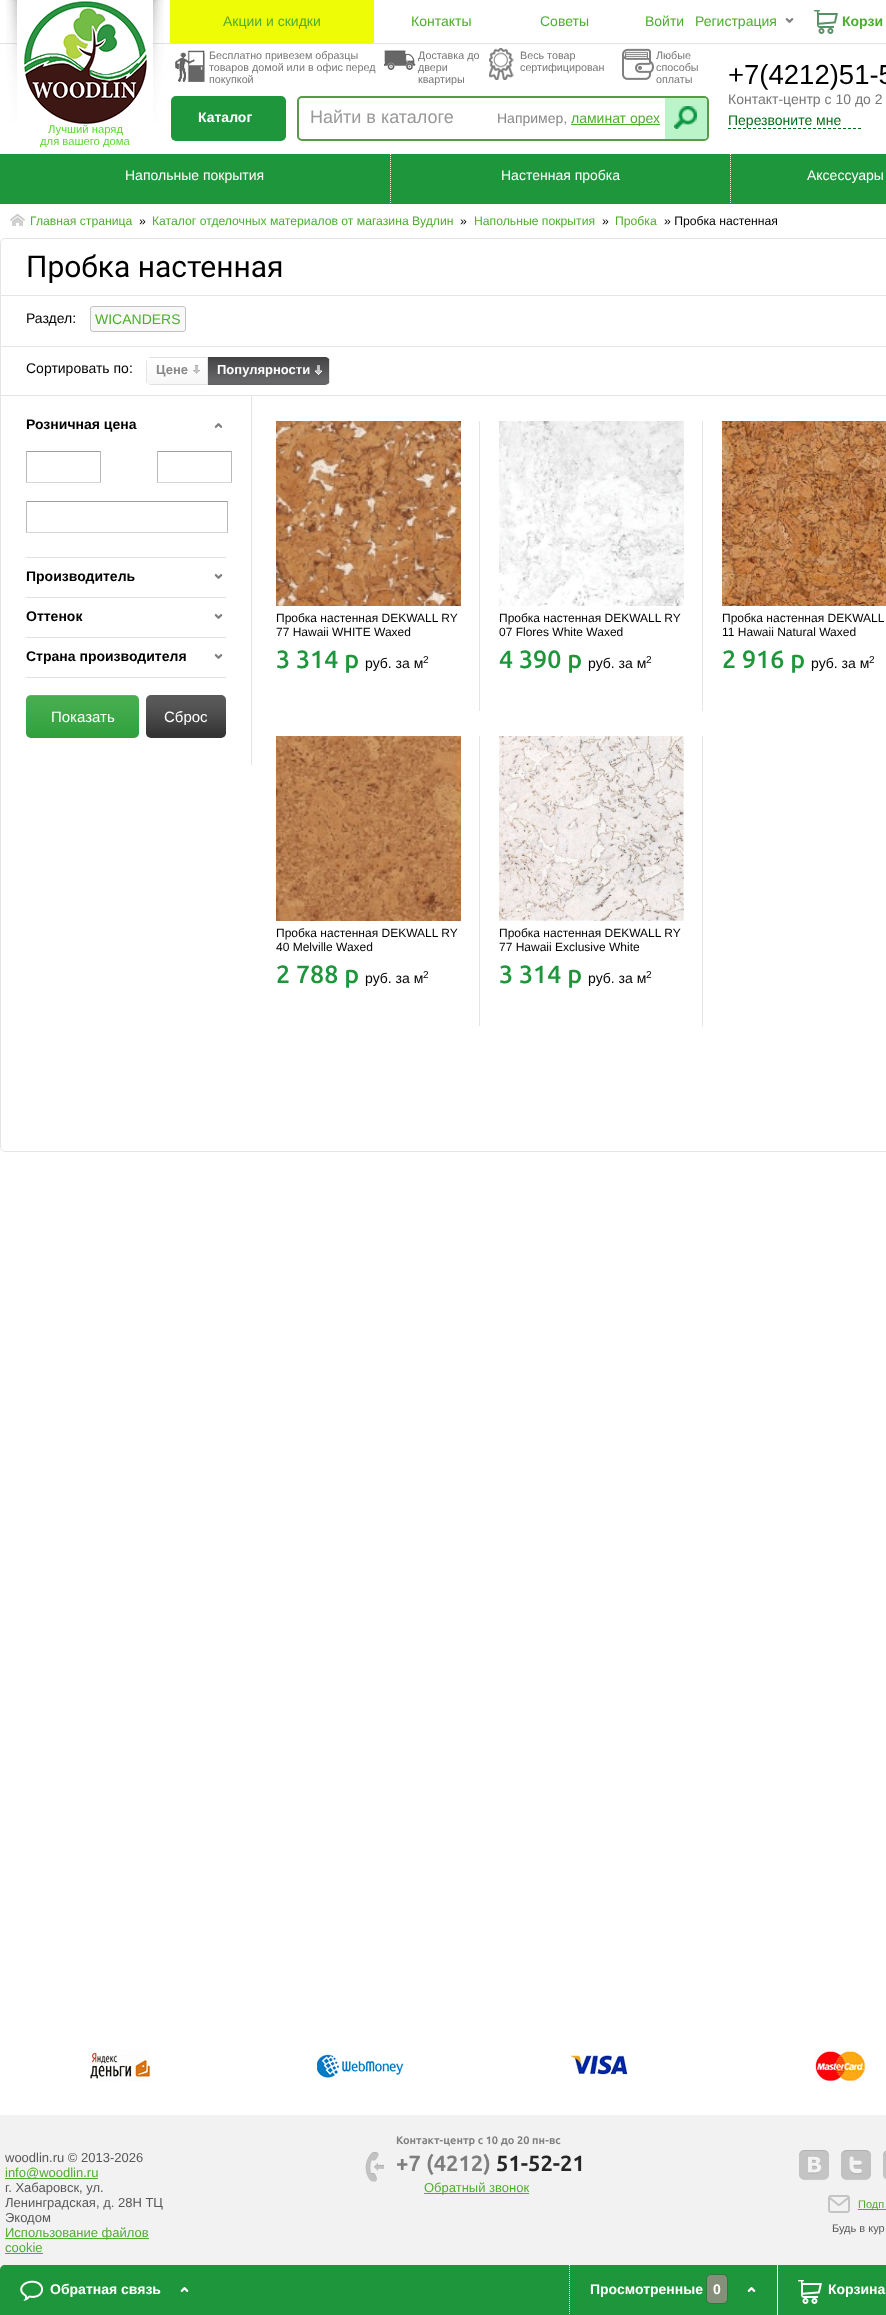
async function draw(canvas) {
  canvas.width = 886;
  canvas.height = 2315;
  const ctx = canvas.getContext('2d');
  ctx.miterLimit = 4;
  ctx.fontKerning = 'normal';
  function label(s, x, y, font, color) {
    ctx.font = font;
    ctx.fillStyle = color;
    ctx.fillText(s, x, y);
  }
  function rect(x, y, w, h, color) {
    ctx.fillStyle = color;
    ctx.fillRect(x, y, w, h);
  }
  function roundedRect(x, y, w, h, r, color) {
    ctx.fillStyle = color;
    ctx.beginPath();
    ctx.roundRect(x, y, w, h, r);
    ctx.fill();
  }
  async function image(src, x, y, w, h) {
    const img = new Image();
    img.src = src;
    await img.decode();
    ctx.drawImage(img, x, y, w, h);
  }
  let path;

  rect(0, 0, 886, 2315, '#fff');
  rect(0, 43, 886, 1, '#e2e2e2');
  rect(170, 0, 204, 43, '#eefd05');
  label('Акции и скидки', 223, 26, '14px Liberation Sans', '#4eae2d');
  label('Контакты', 411, 26, '14px Liberation Sans', '#4eae2d');
  label('Советы', 540, 26, '14px Liberation Sans', '#4eae2d');
  label('Войти', 645, 26, '14px Liberation Sans', '#4eae2d');
  label('Регистрация', 695, 26, '14px Liberation Sans', '#4eae2d');
  await image('assets/img1.png', 785, 18, 9, 5);
  await image('assets/img2.png', 814, 10, 24, 24);
  label('Корзи', 842, 26, 'bold 14px Liberation Sans', '#4eae2d');
  await image('assets/img3.png', 6, 0, 158, 124);
  label('Лучший наряд', 48, 133, '11.25px Liberation Sans', '#5bd830');
  label('для вашего дома', 40, 145, '11.25px Liberation Sans', '#5bd830');
  await image('assets/img4.png', 175, 50, 30, 32);
  label('Бесплатно привезем образцы', 209, 59, '10.75px Liberation Sans', '#777');
  label('товаров домой или в офис перед', 209, 71, '10.75px Liberation Sans', '#777');
  label('покупкой', 209, 83, '10.75px Liberation Sans', '#777');
  await image('assets/img5.png', 384, 50, 32, 20);
  label('Доставка до', 418, 59, '10.75px Liberation Sans', '#777');
  label('двери', 418, 71, '10.75px Liberation Sans', '#777');
  label('квартиры', 418, 83, '10.75px Liberation Sans', '#777');
  await image('assets/img6.png', 489, 48, 25, 32);
  label('Весь товар', 520, 59, '10.75px Liberation Sans', '#777');
  label('сертифицирован', 520, 71, '10.75px Liberation Sans', '#777');
  await image('assets/img7.png', 622, 48, 32, 32);
  label('Любые', 656, 59, '10.75px Liberation Sans', '#777');
  label('способы', 656, 71, '10.75px Liberation Sans', '#777');
  label('оплаты', 656, 83, '10.75px Liberation Sans', '#777');
  roundedRect(171, 96, 115, 45, 5, '#1e963b');
  label('Каталог', 198, 122, 'bold 14px Liberation Sans', '#fff');
  ctx.beginPath();
  ctx.roundRect(298, 97, 410, 43, 4);
  ctx.strokeStyle = '#569b48';
  ctx.lineWidth = 2;
  ctx.stroke();
  label('Найти в каталоге', 310, 123, '18px Liberation Sans', '#999');
  label('Например,', 497, 123, '14px Liberation Sans', '#888');
  rect(571, 124, 89, 1, '#4eae2d');
  label('ламинат орех', 571, 123, '14px Liberation Sans', '#4eae2d');
  ctx.fillStyle = '#bcf4ca';
  ctx.beginPath();
  ctx.roundRect(665, 98, 42, 41, [0, 3, 3, 0]);
  ctx.fill();
  await image('assets/img8.png', 674, 106, 23, 23);
  label('+7(4212)51-5', 728, 84, '27.5px Liberation Sans', '#000');
  label('Контакт-центр с 10 до 2', 728, 104, '14px Liberation Sans', '#777');
  path = new Path2D('M728 128.5H861');
  ctx.strokeStyle = '#00711b';
  ctx.lineWidth = 1;
  ctx.setLineDash([3, 2]);
  ctx.stroke(path);
  label('Перезвоните мне', 728, 125, '14px Liberation Sans', '#00711b');
  rect(0, 154, 886, 50, '#1e963b');
  label('Напольные покрытия', 125, 180, '14px Liberation Sans', '#fff');
  path = new Path2D('M390.5 154V204');
  ctx.strokeStyle = '#fff';
  ctx.setLineDash([1, 1]);
  ctx.stroke(path);
  label('Настенная пробка', 501, 180, '14px Liberation Sans', '#fff');
  path = new Path2D('M730.5 154V204');
  ctx.stroke(path);
  label('Аксессуары', 807, 180, '14px Liberation Sans', '#fff');
  await image('assets/img9.png', 10, 214, 15, 12);
  label('Главная страница', 30, 225, '12.2px Liberation Sans', '#4eae2d');
  label('»', 139, 225, '12.2px Liberation Sans', '#000');
  label('Каталог отделочных материалов от магазина Вудлин', 152, 225, '12.2px Liberation Sans', '#4eae2d');
  label('»', 460, 225, '12.2px Liberation Sans', '#000');
  label('Напольные покрытия', 474, 225, '12.2px Liberation Sans', '#4eae2d');
  label('»', 602, 225, '12.2px Liberation Sans', '#000');
  label('Пробка', 615, 225, '12.2px Liberation Sans', '#4eae2d');
  label('» Пробка настенная', 664, 225, '12.2px Liberation Sans', '#000');
  ctx.beginPath();
  ctx.roundRect(0.5, 238.5, 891, 913, 4.5);
  ctx.strokeStyle = '#e5e5e5';
  ctx.setLineDash([]);
  ctx.stroke();
  label('Пробка настенная', 26, 277, '30px Roboto', '#000');
  rect(1, 295, 885, 1, '#e5e5e5');
  label('Раздел:', 26, 323, '14px Liberation Sans', '#000');
  ctx.fillStyle = '#f8f8f8';
  ctx.beginPath();
  ctx.roundRect(90.5, 306.5, 95, 25, 2.5);
  ctx.fill();
  ctx.strokeStyle = '#c3c3c3';
  ctx.stroke();
  label('WICANDERS', 95, 324, '14px Liberation Sans', '#4eae2d');
  rect(1, 346, 885, 1, '#e5e5e5');
  label('Сортировать по:', 26, 373, '14px Liberation Sans', '#000');
  await image('assets/img10.png', 146, 357, 61, 28);
  rect(207, 357, 1, 28, '#e5e5e5');
  rect(146, 360, 1, 23, '#e5e5e5');
  label('Цене', 156, 374, 'bold 13px Liberation Sans', '#888');
  await image('assets/img11.png', 193, 365, 7, 10);
  await image('assets/img12.png', 208, 357, 122, 28);
  rect(329, 360, 1, 23, '#e5e5e5');
  label('Популярности', 217, 374, 'bold 13px Liberation Sans', '#fff');
  await image('assets/img13.png', 315, 365, 7, 10);
  rect(1, 395, 885, 1, '#e5e5e5');
  rect(251, 396, 1, 369, '#e5e5e5');
  rect(26, 557, 200, 1, '#e2e2e2');
  await image('assets/img14.png', 214, 423, 8, 5);
  label('Розничная цена', 26, 429, 'bold 14px Liberation Sans', '#000');
  ctx.fillStyle = '#9e9e9e';
  path = new Path2D('M26 451H101L100 452H27Z');
  ctx.fill(path);
  ctx.fillStyle = '#00000045';
  path = new Path2D('M101 451V483L100 482V452Z');
  ctx.fill(path);
  ctx.fillStyle = '#00000029';
  path = new Path2D('M101 483H26L27 482H100Z');
  ctx.fill(path);
  ctx.fillStyle = '#00000045';
  path = new Path2D('M26 483V451L27 452V482Z');
  ctx.fill(path);
  ctx.fillStyle = '#9e9e9e';
  path = new Path2D('M157 451H232L231 452H158Z');
  ctx.fill(path);
  ctx.fillStyle = '#00000045';
  path = new Path2D('M232 451V483L231 482V452Z');
  ctx.fill(path);
  ctx.fillStyle = '#00000029';
  path = new Path2D('M232 483H157L158 482H231Z');
  ctx.fill(path);
  ctx.fillStyle = '#00000045';
  path = new Path2D('M157 483V451L158 452V482Z');
  ctx.fill(path);
  ctx.fillStyle = '#9e9e9e';
  path = new Path2D('M26 501H228L227 502H27Z');
  ctx.fill(path);
  ctx.fillStyle = '#00000045';
  path = new Path2D('M228 501V533L227 532V502Z');
  ctx.fill(path);
  ctx.fillStyle = '#00000029';
  path = new Path2D('M228 533H26L27 532H227Z');
  ctx.fill(path);
  ctx.fillStyle = '#00000045';
  path = new Path2D('M26 533V501L27 502V532Z');
  ctx.fill(path);
  rect(26, 597, 200, 1, '#e2e2e2');
  await image('assets/img1.png', 214, 574, 9, 5);
  label('Производитель', 26, 581, 'bold 14px Liberation Sans', '#000');
  rect(26, 637, 200, 1, '#e2e2e2');
  await image('assets/img1.png', 214, 614, 9, 5);
  label('Оттенок', 26, 621, 'bold 14px Liberation Sans', '#000');
  rect(26, 677, 200, 1, '#e2e2e2');
  await image('assets/img1.png', 214, 654, 9, 5);
  label('Страна производителя', 26, 661, 'bold 14px Liberation Sans', '#000');
  await image('assets/img15.png', 26, 695, 113, 43);
  label('Показать', 51, 722, '15px Liberation Sans', '#fff');
  await image('assets/img16.png', 146, 695, 80, 43);
  label('Сброс', 164, 722, '15px Liberation Sans', '#fff');
  rect(479, 421, 1, 290, '#e5e5e5');
  await image('assets/img17.png', 276, 421, 185, 185);
  label('Пробка настенная DEKWALL RY', 276, 622, '12px Liberation Sans', '#000');
  label('77 Hawaii WHITE Waxed', 276, 636, '12px Liberation Sans', '#000');
  label('3 314 р', 276, 668, '600 25px Ubuntu', '#1e963b');
  label('руб. за м', 365, 668, '14px Liberation Sans', '#000');
  label('2', 423, 663, '10px Liberation Sans', '#000');
  rect(702, 421, 1, 290, '#e5e5e5');
  await image('assets/img18.png', 499, 421, 185, 185);
  label('Пробка настенная DEKWALL RY', 499, 622, '12px Liberation Sans', '#000');
  label('07 Flores White Waxed', 499, 636, '12px Liberation Sans', '#000');
  label('4 390 р', 499, 668, '600 25px Ubuntu', '#1e963b');
  label('руб. за м', 588, 668, '14px Liberation Sans', '#000');
  label('2', 646, 663, '10px Liberation Sans', '#000');
  await image('assets/img19.png', 722, 421, 164, 185);
  label('Пробка настенная DEKWALL', 722, 622, '12px Liberation Sans', '#000');
  label('11 Hawaii Natural Waxed', 722, 636, '12px Liberation Sans', '#000');
  label('2 916 р', 722, 668, '600 25px Ubuntu', '#1e963b');
  label('руб. за м', 811, 668, '14px Liberation Sans', '#000');
  label('2', 869, 663, '10px Liberation Sans', '#000');
  rect(479, 736, 1, 290, '#e5e5e5');
  await image('assets/img20.png', 276, 736, 185, 185);
  label('Пробка настенная DEKWALL RY', 276, 937, '12px Liberation Sans', '#000');
  label('40 Melville Waxed', 276, 951, '12px Liberation Sans', '#000');
  label('2 788 р', 276, 983, '600 25px Ubuntu', '#1e963b');
  label('руб. за м', 365, 983, '14px Liberation Sans', '#000');
  label('2', 423, 978, '10px Liberation Sans', '#000');
  rect(702, 736, 1, 290, '#e5e5e5');
  await image('assets/img21.png', 499, 736, 185, 185);
  label('Пробка настенная DEKWALL RY', 499, 937, '12px Liberation Sans', '#000');
  label('77 Hawaii Exclusive White', 499, 951, '12px Liberation Sans', '#000');
  label('3 314 р', 499, 983, '600 25px Ubuntu', '#1e963b');
  label('руб. за м', 588, 983, '14px Liberation Sans', '#000');
  label('2', 646, 978, '10px Liberation Sans', '#000');
  await image('assets/img22.png', 90, 2049, 60, 32);
  await image('assets/img23.png', 316, 2049, 88, 32);
  await image('assets/img24.png', 571, 2049, 58, 32);
  await image('assets/img25.png', 815, 2049, 50, 32);
  rect(0, 2115, 886, 155, '#f2f2f2');
  label('woodlin.ru © 2013-2026', 5, 2162, '13px Liberation Sans', '#585858');
  rect(5, 2178, 93, 1, '#4eae2d');
  label('info@woodlin.ru', 5, 2177, '13px Liberation Sans', '#4eae2d');
  label('г. Хабаровск, ул.', 5, 2192, '13px Liberation Sans', '#585858');
  label('Ленинградская, д. 28Н ТЦ', 5, 2207, '13px Liberation Sans', '#585858');
  label('Экодом', 5, 2222, '13px Liberation Sans', '#585858');
  rect(5, 2238, 144, 1, '#4eae2d');
  label('Использование файлов', 5, 2237, '13px Liberation Sans', '#4eae2d');
  label('cookie', 5, 2252, '13px Liberation Sans', '#4eae2d');
  rect(5, 2253, 38, 1, '#4eae2d');
  label('Контакт-центр с 10 до 20 пн-вс', 396, 2144, 'bold 11px Ubuntu', '#7f7e7e');
  await image('assets/img26.png', 365, 2152, 19, 30);
  label('+7 (4212)', 396, 2171, 'bold 22px Ubuntu', '#7f7e7e');
  label('51-52-21', 496, 2171, 'bold 22px Ubuntu', '#262626');
  rect(424, 2193, 105, 1, '#4eae2d');
  label('Обратный звонок', 424, 2192, '13px Liberation Sans', '#4eae2d');
  await image('assets/img27.png', 799, 2150, 30, 30);
  await image('assets/img28.png', 841, 2150, 30, 30);
  await image('assets/img29.png', 883, 2150, 3, 29);
  await image('assets/img30.png', 828, 2195, 22, 18);
  rect(858, 2209, 28, 1, '#4eae2d');
  label('Подп', 858, 2208, '11px Liberation Sans', '#4eae2d');
  label('Будь в кур', 832, 2232, '11px Liberation Sans', '#585858');
  ctx.fillStyle = '#1e963b';
  path = new Path2D('M5 2265H886C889 2265 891 2267 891 2270V2315H0V2270C0 2267 2 2265 5 2265Z');
  ctx.fill(path);
  await image('assets/img31.png', 20, 2280, 23, 21);
  label('Обратная связь', 50, 2294, 'bold 14px Liberation Sans', '#fff');
  await image('assets/img32.png', 180, 2287, 9, 5);
  path = new Path2D('M569.5 2265V2315');
  ctx.strokeStyle = '#fff';
  ctx.setLineDash([1, 1]);
  ctx.stroke(path);
  label('Просмотренные', 590, 2294, 'bold 14px Liberation Sans', '#fff');
  ctx.fillStyle = '#85907b';
  ctx.beginPath();
  ctx.roundRect(706.5, 2274.5, 21, 29, 4.5);
  ctx.fill();
  ctx.strokeStyle = '#2c7940';
  ctx.setLineDash([]);
  ctx.stroke();
  label('0', 713, 2294, 'bold 14px Liberation Sans', '#fff');
  await image('assets/img32.png', 747, 2287, 9, 5);
  await image('assets/img33.png', 798, 2280, 24, 24);
  rect(777, 2265, 1, 50, '#fff');
  label('Корзина', 828, 2294, 'bold 14px Liberation Sans', '#fff');
}

draw(document.querySelector('canvas'));
